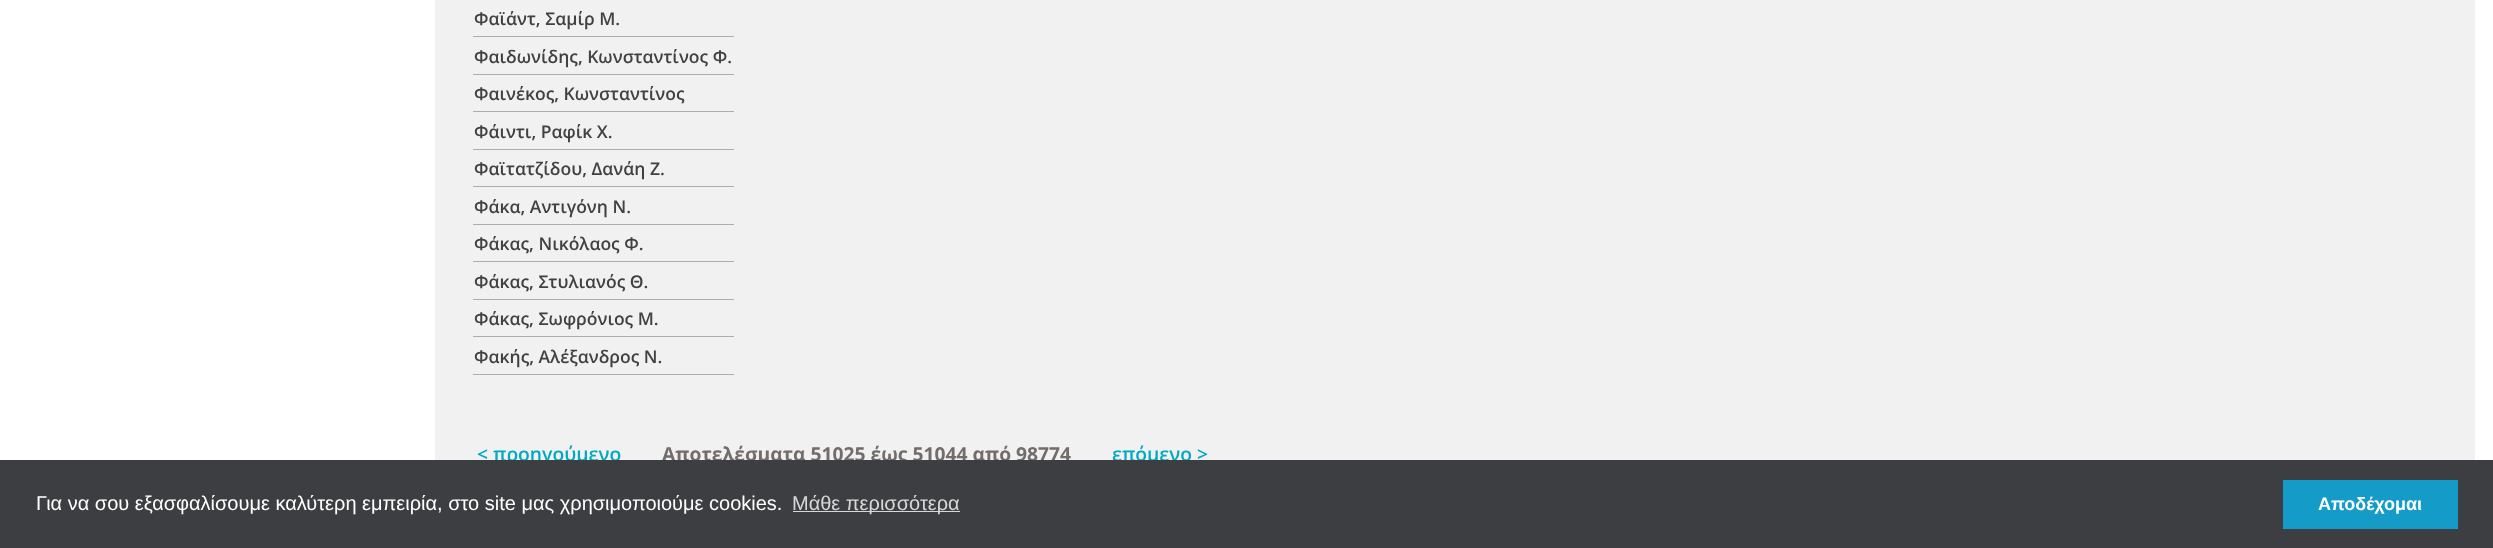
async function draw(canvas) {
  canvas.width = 2493;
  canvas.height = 548;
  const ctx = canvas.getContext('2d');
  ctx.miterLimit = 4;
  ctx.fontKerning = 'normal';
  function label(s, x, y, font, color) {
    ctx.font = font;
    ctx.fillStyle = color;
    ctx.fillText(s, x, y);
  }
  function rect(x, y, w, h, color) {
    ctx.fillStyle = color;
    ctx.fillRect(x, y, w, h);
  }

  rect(0, 0, 2493, 548, '#fff');
  rect(435, 0, 2040, 460, '#f1f1f2');
  rect(473, 36, 261, 1, '#adadad');
  label('Φαϊάντ, Σαμίρ Μ.', 474, 25, '600 17.5px Open Sans', '#414042');
  rect(473, 74, 261, 1, '#adadad');
  label('Φαιδωνίδης, Κωνσταντίνος Φ.', 474, 63, '600 17.5px Open Sans', '#414042');
  rect(473, 111, 261, 1, '#adadad');
  label('Φαινέκος, Κωνσταντίνος', 474, 100, '600 17.5px Open Sans', '#414042');
  rect(473, 149, 261, 1, '#adadad');
  label('Φάιντι, Ραφίκ Χ.', 474, 138, '600 17.5px Open Sans', '#414042');
  rect(473, 186, 261, 1, '#adadad');
  label('Φαϊτατζίδου, Δανάη Ζ.', 474, 175, '600 17.5px Open Sans', '#414042');
  rect(473, 224, 261, 1, '#adadad');
  label('Φάκα, Αντιγόνη Ν.', 474, 213, '600 17.5px Open Sans', '#414042');
  rect(473, 261, 261, 1, '#adadad');
  label('Φάκας, Νικόλαος Φ.', 474, 250, '600 17.5px Open Sans', '#414042');
  rect(473, 299, 261, 1, '#adadad');
  label('Φάκας, Στυλιανός Θ.', 474, 288, '600 17.5px Open Sans', '#414042');
  rect(473, 336, 261, 1, '#adadad');
  label('Φάκας, Σωφρόνιος Μ.', 474, 325, '600 17.5px Open Sans', '#414042');
  rect(473, 374, 261, 1, '#adadad');
  label('Φακής, Αλέξανδρος Ν.', 474, 363, '600 17.5px Open Sans', '#414042');
  label('< προηγούμενο', 477, 461, '600 19.25px Open Sans', '#00a9c2');
  label('Αποτελέσματα 51025 έως 51044 από 98774', 662, 461, 'bold 19.25px Open Sans', '#726d6a');
  label('επόμενο >', 1112, 461, '600 19.25px Open Sans', '#00a9c2');
  rect(0, 460, 2493, 88, '#3d3e42');
  label('Για να σου εξασφαλίσουμε καλύτερη εμπειρία, στο site μας χρησιμοποιούμε cookies.', 36, 510, '20px Liberation Sans', '#fff');
  rect(793, 511, 167, 1, '#d8d8d9');
  label('Μάθε περισσότερα', 792, 510, '20px Liberation Sans', '#d8d8d9');
  rect(2283, 480, 175, 49, '#149bc7');
  label('Αποδέχομαι', 2318, 510, 'bold 18px Liberation Sans', '#fff');
}

draw(document.querySelector('canvas'));
